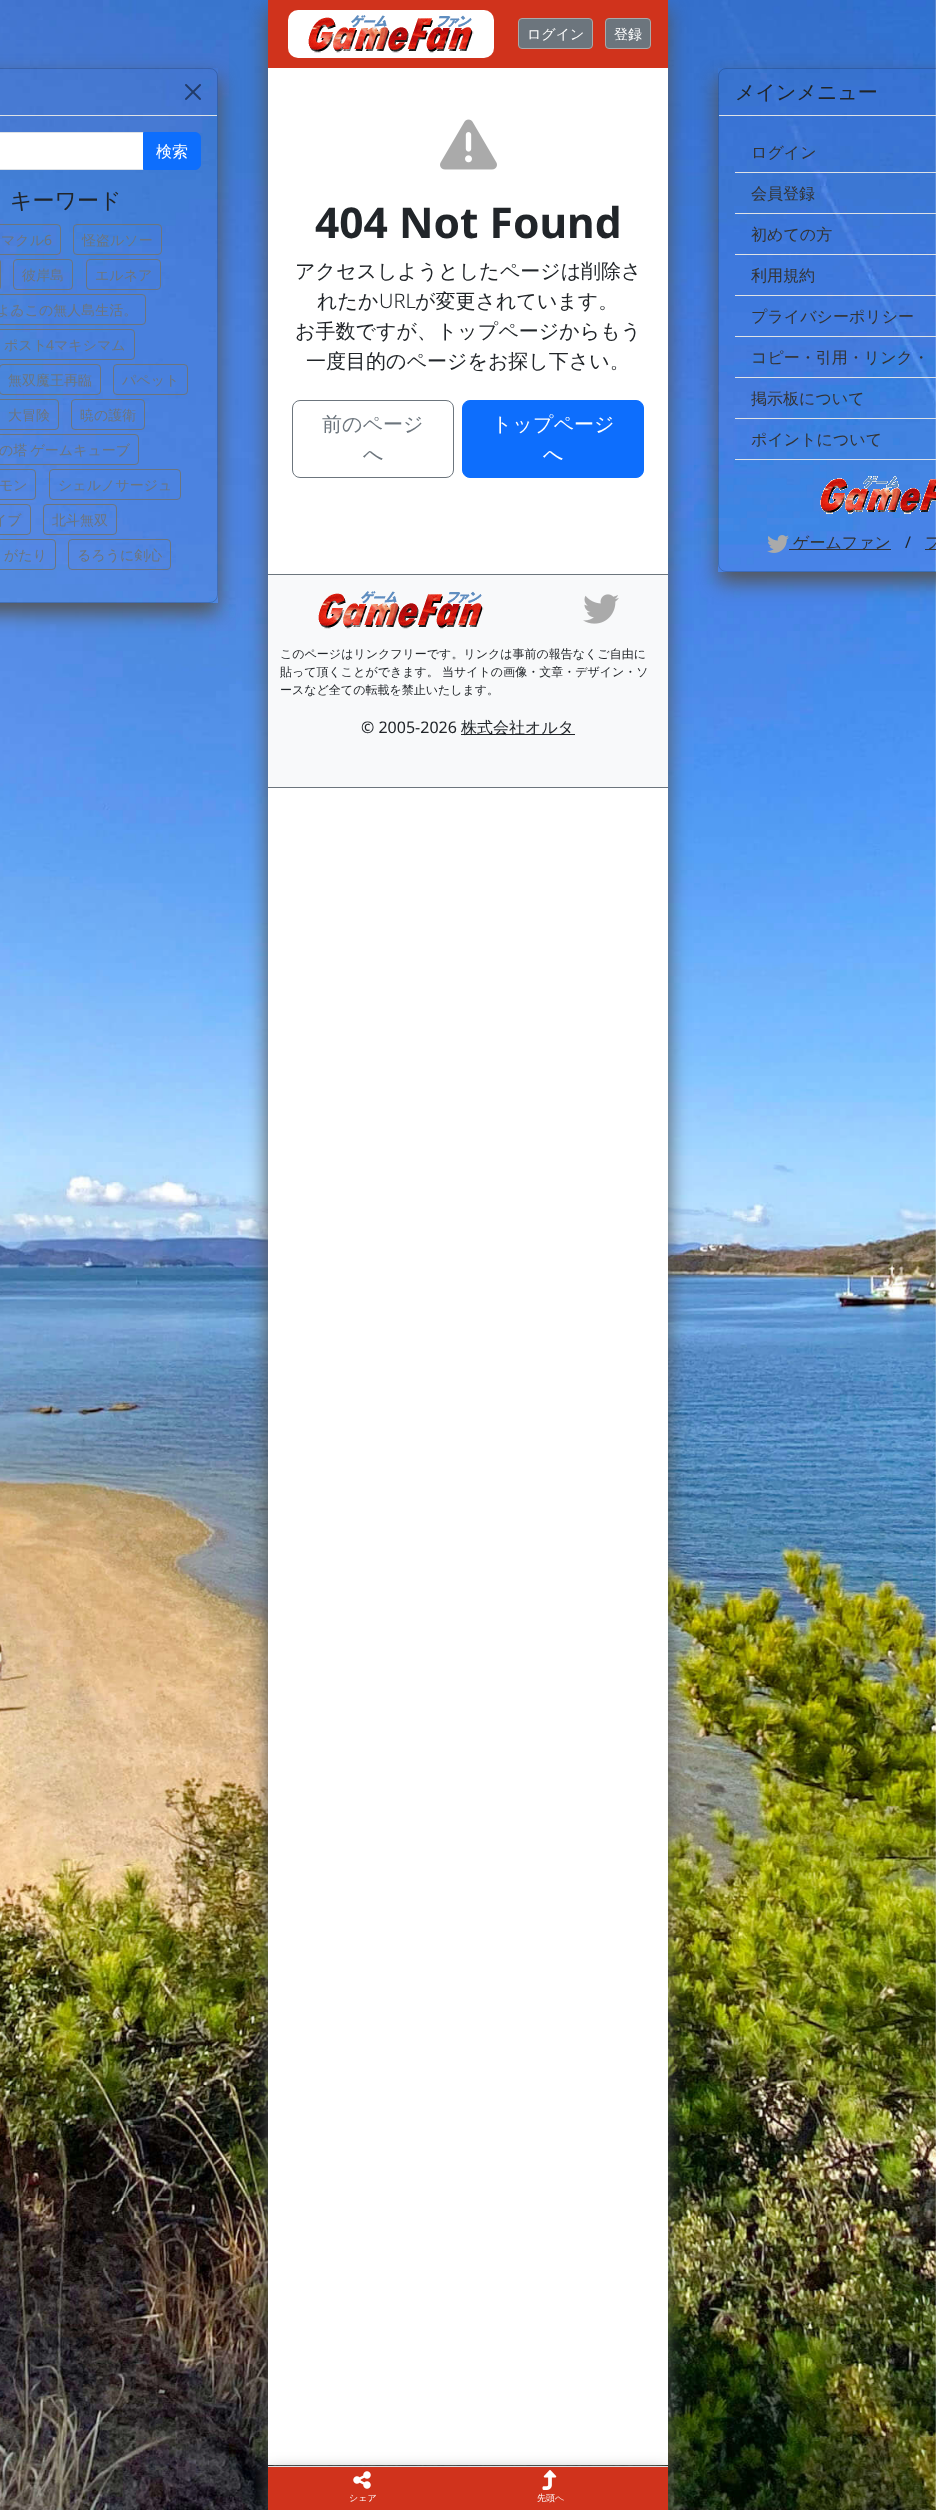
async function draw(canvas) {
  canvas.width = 936;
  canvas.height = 2510;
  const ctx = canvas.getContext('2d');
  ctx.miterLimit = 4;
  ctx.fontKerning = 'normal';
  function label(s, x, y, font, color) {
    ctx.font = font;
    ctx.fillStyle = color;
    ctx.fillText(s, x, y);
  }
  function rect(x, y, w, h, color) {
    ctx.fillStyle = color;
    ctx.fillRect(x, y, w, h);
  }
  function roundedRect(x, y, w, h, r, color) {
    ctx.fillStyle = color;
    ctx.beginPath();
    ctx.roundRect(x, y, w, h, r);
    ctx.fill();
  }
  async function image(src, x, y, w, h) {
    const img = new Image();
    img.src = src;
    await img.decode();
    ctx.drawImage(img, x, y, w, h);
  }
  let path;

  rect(0, 0, 936, 2510, '#fff');
  await image('assets/img1.png', 0, 0, 936, 2510);
  ctx.fillStyle = '#555';
  ctx.filter = 'blur(10px)';
  ctx.beginPath();
  ctx.rect(268, 10, 400, 2465);
  ctx.fill();
  ctx.filter = 'none';
  rect(268, 68, 400, 2397, '#fff');
  rect(268, 0, 400, 68, '#d0331c');
  roundedRect(288, 10, 206, 48, 10, '#fff');
  await image('assets/img2.png', 308, 15, 166, 38);
  ctx.fillStyle = '#6c757d';
  ctx.beginPath();
  ctx.roundRect(518.5, 18.5, 74, 30, 3.5);
  ctx.fill();
  ctx.strokeStyle = '#aaa';
  ctx.stroke();
  label('ログイン', 527, 39, '500 14px WenQuanYi Zen Hei', '#fff');
  ctx.fillStyle = '#6c757d';
  ctx.beginPath();
  ctx.roundRect(605.5, 18.5, 45, 30, 3.5);
  ctx.fill();
  ctx.stroke();
  label('登録', 614, 39, '500 14px WenQuanYi Zen Hei', '#fff');
  ctx.save();
  path = new Path2D('M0 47H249V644H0ZM-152 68H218V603H-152Z');
  ctx.clip(path, 'evenodd');
  ctx.fillStyle = '#555';
  ctx.filter = 'blur(10px)';
  ctx.beginPath();
  ctx.rect(-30, 78, 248, 535);
  ctx.fill();
  ctx.filter = 'none';
  ctx.restore();
  ctx.beginPath();
  ctx.roundRect(-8.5, 68.5, 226, 534, 7.5);
  ctx.strokeStyle = '#0000002e';
  ctx.stroke();
  rect(0, 115, 217, 1, '#dee2e6');
  await image('assets/img3.png', 185, 84, 16, 16);
  ctx.fillStyle = '#fff';
  ctx.beginPath();
  ctx.rect(-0.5, 132.5, 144, 37);
  ctx.fill();
  ctx.strokeStyle = '#dee2e6';
  ctx.stroke();
  ctx.fillStyle = '#0d6efd';
  ctx.beginPath();
  ctx.roundRect(143.5, 132.5, 57, 37, [0, 5.5, 5.5, 0]);
  ctx.fill();
  ctx.strokeStyle = '#0d6efd';
  ctx.stroke();
  label('検索', 156, 157, '500 16px WenQuanYi Zen Hei', '#fff');
  label('キーワード', 10, 208, '500 22px WenQuanYi Zen Hei', '#212529');
  ctx.beginPath();
  ctx.roundRect(-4.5, 224.5, 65, 30, 3.5);
  ctx.strokeStyle = '#6c757d';
  ctx.stroke();
  label('マクル', 1, 245, '500 14px WenQuanYi Zen Hei', '#6c757d');
  label('6', 44, 245, '14px Noto Sans', '#6c757d');
  ctx.beginPath();
  ctx.roundRect(73.5, 224.5, 88, 30, 3.5);
  ctx.stroke();
  label('怪盗ルソー', 82, 245, '500 14px WenQuanYi Zen Hei', '#6c757d');
  ctx.beginPath();
  ctx.roundRect(-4.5, 259.5, 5, 30, 3.5);
  ctx.stroke();
  ctx.beginPath();
  ctx.roundRect(13.5, 259.5, 59, 30, 3.5);
  ctx.stroke();
  label('彼岸島', 22, 280, '500 14px WenQuanYi Zen Hei', '#6c757d');
  ctx.beginPath();
  ctx.roundRect(86.5, 259.5, 74, 30, 3.5);
  ctx.stroke();
  label('エルネア', 95, 280, '500 14px WenQuanYi Zen Hei', '#6c757d');
  ctx.beginPath();
  ctx.roundRect(-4.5, 294.5, 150, 30, 3.5);
  ctx.stroke();
  ctx.wordSpacing = '-1px';
  label('よゐこの無人島生活。', -4, 315, '500 14px WenQuanYi Zen Hei', '#6c757d');
  ctx.beginPath();
  ctx.roundRect(-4.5, 329.5, 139, 30, 3.5);
  ctx.stroke();
  ctx.wordSpacing = '0px';
  label('ポスト', 4, 350, '500 14px WenQuanYi Zen Hei', '#6c757d');
  label('4', 46, 350, '14px Noto Sans', '#6c757d');
  label('マキシマム', 54, 350, '500 14px WenQuanYi Zen Hei', '#6c757d');
  ctx.beginPath();
  ctx.roundRect(-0.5, 364.5, 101, 30, 3.5);
  ctx.stroke();
  label('無双魔王再臨', 8, 385, '500 14px WenQuanYi Zen Hei', '#6c757d');
  ctx.beginPath();
  ctx.roundRect(113.5, 364.5, 74, 30, 3.5);
  ctx.stroke();
  label('パペット', 122, 385, '500 14px WenQuanYi Zen Hei', '#6c757d');
  ctx.beginPath();
  ctx.roundRect(-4.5, 399.5, 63, 30, 3.5);
  ctx.stroke();
  label('大冒険', 8, 420, '500 14px WenQuanYi Zen Hei', '#6c757d');
  ctx.beginPath();
  ctx.roundRect(71.5, 399.5, 73, 30, 3.5);
  ctx.stroke();
  label('暁の護衛', 80, 420, '500 14px WenQuanYi Zen Hei', '#6c757d');
  ctx.beginPath();
  ctx.roundRect(-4.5, 434.5, 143, 30, 3.5);
  ctx.stroke();
  ctx.wordSpacing = '-1px';
  label('の塔 ゲームキューブ', -1, 455, '500 14px WenQuanYi Zen Hei', '#6c757d');
  ctx.beginPath();
  ctx.roundRect(-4.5, 469.5, 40, 30, 3.5);
  ctx.stroke();
  ctx.wordSpacing = '0px';
  label('モン', -1, 490, '500 14px WenQuanYi Zen Hei', '#6c757d');
  ctx.beginPath();
  ctx.roundRect(49.5, 469.5, 131, 30, 3.5);
  ctx.stroke();
  label('シェルノサージュ', 58, 490, '500 14px WenQuanYi Zen Hei', '#6c757d');
  ctx.beginPath();
  ctx.roundRect(-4.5, 504.5, 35, 30, 3.5);
  ctx.stroke();
  label('イブ', -7, 525, '500 14px WenQuanYi Zen Hei', '#6c757d');
  ctx.beginPath();
  ctx.roundRect(43.5, 504.5, 73, 30, 3.5);
  ctx.stroke();
  label('北斗無双', 52, 525, '500 14px WenQuanYi Zen Hei', '#6c757d');
  ctx.beginPath();
  ctx.roundRect(-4.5, 539.5, 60, 30, 3.5);
  ctx.stroke();
  label('がたり', 4, 560, '500 14px WenQuanYi Zen Hei', '#6c757d');
  ctx.beginPath();
  ctx.roundRect(68.5, 539.5, 102, 30, 3.5);
  ctx.stroke();
  label('るろうに剣心', 77, 560, '500 14px WenQuanYi Zen Hei', '#6c757d');
  await image('assets/img4.png', 440, 119, 57, 51);
  label('404 Not Found', 315, 238, 'bold 42.5px Noto Sans', '#212529');
  label('アクセスしようとしたページは削除さ', 295, 278, '500 20px WenQuanYi Zen Hei', '#212529');
  label('れたか', 317, 308, '500 20px WenQuanYi Zen Hei', '#212529');
  label('URL', 379, 308, '300 20px Noto Sans', '#212529');
  label('が変更されています。', 415, 308, '500 20px WenQuanYi Zen Hei', '#212529');
  label('お手数ですが、トップページからもう', 295, 338, '500 20px WenQuanYi Zen Hei', '#212529');
  label('一度目的のページをお探し下さい。', 306, 368, '500 20px WenQuanYi Zen Hei', '#212529');
  ctx.beginPath();
  ctx.roundRect(292.5, 400.5, 161, 77, 7.5);
  ctx.stroke();
  label('前のページ', 322, 431, '500 20px WenQuanYi Zen Hei', '#6c757d');
  label('へ', 363, 461, '500 20px WenQuanYi Zen Hei', '#6c757d');
  ctx.fillStyle = '#0d6efd';
  ctx.beginPath();
  ctx.roundRect(462.5, 400.5, 181, 77, 7.5);
  ctx.fill();
  ctx.strokeStyle = '#0d6efd';
  ctx.stroke();
  label('トップページ', 492, 431, '500 20px WenQuanYi Zen Hei', '#fff');
  label('へ', 543, 461, '500 20px WenQuanYi Zen Hei', '#fff');
  ctx.save();
  path = new Path2D('M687 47H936V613H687ZM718 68H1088V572H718Z');
  ctx.clip(path, 'evenodd');
  ctx.fillStyle = '#555';
  ctx.filter = 'blur(10px)';
  ctx.beginPath();
  ctx.rect(718, 78, 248, 504);
  ctx.fill();
  ctx.filter = 'none';
  ctx.restore();
  ctx.beginPath();
  ctx.roundRect(718.5, 68.5, 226, 503, 7.5);
  ctx.strokeStyle = '#0000002e';
  ctx.stroke();
  rect(719, 115, 217, 1, '#dee2e6');
  label('メインメニュー', 735, 99, '500 20px WenQuanYi Zen Hei', '#212529');
  rect(735, 172, 201, 1, '#dee2e6');
  label('ログイン', 751, 158, '500 16px WenQuanYi Zen Hei', '#333');
  rect(735, 213, 201, 1, '#dee2e6');
  label('会員登録', 751, 199, '500 16px WenQuanYi Zen Hei', '#333');
  rect(735, 254, 201, 1, '#dee2e6');
  label('初めての方', 751, 240, '500 16px WenQuanYi Zen Hei', '#333');
  rect(735, 295, 201, 1, '#dee2e6');
  label('利用規約', 751, 281, '500 16px WenQuanYi Zen Hei', '#333');
  rect(735, 336, 201, 1, '#dee2e6');
  label('プライバシーポリシー', 751, 322, '500 16px WenQuanYi Zen Hei', '#333');
  rect(735, 377, 201, 1, '#dee2e6');
  label('コピー・引用・リンク・', 751, 363, '500 16px WenQuanYi Zen Hei', '#333');
  rect(735, 418, 201, 1, '#dee2e6');
  label('掲示板について', 751, 404, '500 16px WenQuanYi Zen Hei', '#333');
  rect(735, 459, 201, 1, '#dee2e6');
  label('ポイントについて', 751, 445, '500 16px WenQuanYi Zen Hei', '#333');
  await image('assets/img5.png', 820, 476, 116, 38);
  await image('assets/img6.png', 767, 535, 22, 18);
  rect(789, 549, 102, 1, '#333');
  label('ゲームファン', 793, 548, '500 16px WenQuanYi Zen Hei', '#333');
  label('/', 905, 548, '16px Noto Sans', '#212529');
  rect(925, 549, 11, 1, '#333');
  label('フ', 925, 548, '500 16px WenQuanYi Zen Hei', '#333');
  rect(268, 575, 400, 212, '#f8f9fa');
  rect(268, 574, 400, 1, '#6c757d');
  rect(268, 787, 400, 1, '#6c757d');
  await image('assets/img7.png', 318, 591, 166, 38);
  await image('assets/img8.png', 583, 594, 36, 30);
  label('このページはリンクフリーです。リンクは事前の報告なくご自由に', 280, 658, '500 12px WenQuanYi Zen Hei', '#212529');
  label('貼って頂くことができます。', 280, 676, '500 12px WenQuanYi Zen Hei', '#212529');
  label('当サイトの画像・文章・デザイン・ソ', 442, 676, '500 12px WenQuanYi Zen Hei', '#212529');
  label('ースなど全ての転載を禁止いたします。', 280, 694, '500 12px WenQuanYi Zen Hei', '#212529');
  label('© 2005-2026', 361, 733, '16px Noto Sans', '#212529');
  rect(461, 734, 114, 1, '#212529');
  label('株式会社オルタ', 461, 733, '500 16px WenQuanYi Zen Hei', '#212529');
  ctx.fillStyle = '#555';
  ctx.filter = 'blur(10px)';
  ctx.beginPath();
  ctx.rect(268, 2476, 400, 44);
  ctx.fill();
  ctx.filter = 'none';
  rect(268, 2467, 400, 43, '#d0331c');
  rect(268, 2466, 400, 1, '#dee2e6');
  await image('assets/img9.png', 353, 2471, 18, 18);
  label('シェア', 349, 2501, '500 9px WenQuanYi Zen Hei', '#fff');
  await image('assets/img10.png', 542, 2470, 15, 20);
  label('先頭へ', 537, 2501, '500 9px WenQuanYi Zen Hei', '#fff');
}

draw(document.querySelector('canvas'));
